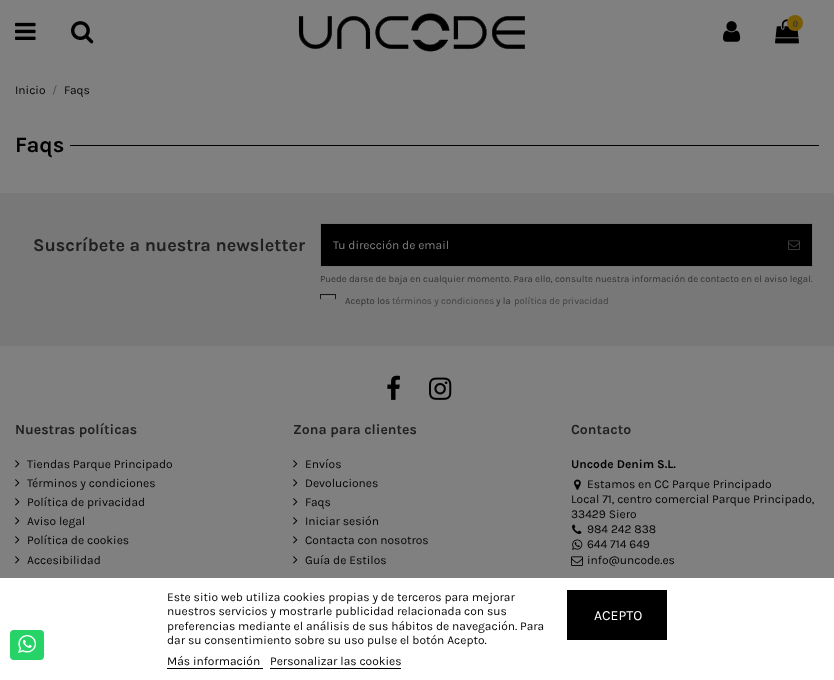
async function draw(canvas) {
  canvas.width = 834;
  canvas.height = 680;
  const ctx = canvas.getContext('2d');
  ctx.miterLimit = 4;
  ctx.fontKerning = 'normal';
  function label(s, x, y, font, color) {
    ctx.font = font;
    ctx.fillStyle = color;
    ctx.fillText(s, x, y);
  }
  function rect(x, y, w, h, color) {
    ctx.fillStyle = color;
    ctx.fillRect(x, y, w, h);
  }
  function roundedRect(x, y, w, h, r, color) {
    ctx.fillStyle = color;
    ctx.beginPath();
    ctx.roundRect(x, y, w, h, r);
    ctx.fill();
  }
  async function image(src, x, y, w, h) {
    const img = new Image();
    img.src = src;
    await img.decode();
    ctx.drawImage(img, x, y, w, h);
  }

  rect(0, 0, 834, 680, '#808080');
  await image('assets/img1.png', 15, 22, 21, 18);
  await image('assets/img2.png', 71, 21, 23, 23);
  await image('assets/img3.png', 298, 13, 227, 39);
  await image('assets/img4.png', 723, 21, 18, 21);
  await image('assets/img5.png', 775, 19, 24, 25);
  ctx.fillStyle = '#785c08';
  ctx.beginPath();
  ctx.arc(795, 23, 8, 0, 2 * Math.PI);
  ctx.fill();
  label('0', 793, 27, '9.6px Liberation Serif', '#282828');
  label('Inicio', 15, 94, '12px Karla', '#000');
  label('/', 52, 94, '12px Karla', '#4d4d4d');
  label('Faqs', 64, 94, '12px Karla', '#000');
  label('Faqs', 15, 152, 'bold 22px Karla', '#000');
  rect(70, 145, 749, 1, '#000');
  rect(0, 193, 834, 153, '#787878');
  label('Suscríbete a nuestra newsletter', 33, 251, 'bold 18px Karla', '#1f1f1f');
  ctx.fillStyle = '#000';
  ctx.beginPath();
  ctx.rect(320.5, 223.5, 492, 43);
  ctx.fill();
  ctx.strokeStyle = '#727272';
  ctx.stroke();
  label('Tu dirección de email', 333, 249, '12px Karla', '#808080');
  await image('assets/img6.png', 788, 240, 12, 10);
  label('Puede darse de baja en cualquier momento. Para ello, consulte nuestra información de contacto en el aviso legal.', 320, 282, '9.6px Karla', '#313131');
  rect(321, 296, 14, 3, '#7e7e7e');
  rect(321, 295, 14, 1, '#757575');
  ctx.strokeStyle = '#181818';
  ctx.strokeRect(320.5, 294.5, 15, 15);
  label('Acepto los', 345, 304, '9.6px Karla', '#313131');
  label('términos y condiciones', 392, 304, '9.6px Karla', '#414141');
  label('y la', 496, 304, '9.6px Karla', '#313131');
  label('política de privacidad', 514, 304, '9.6px Karla', '#414141');
  ctx.fillStyle = '#787878';
  ctx.beginPath();
  ctx.roundRect(320.5, 298.5, 15, 15, 1.5);
  ctx.fill();
  ctx.strokeStyle = '#787878';
  ctx.stroke();
  await image('assets/img7.png', 387, 375, 13, 25);
  await image('assets/img8.png', 429, 377, 23, 23);
  label('Nuestras políticas', 15, 434, 'bold 14px Karla', '#1f1f1f');
  await image('assets/img9.png', 15, 460, 5, 8);
  label('Tiendas Parque Principado', 27, 468, '12px Karla', '#000');
  await image('assets/img9.png', 15, 479, 5, 8);
  label('Términos y condiciones', 27, 487, '12px Karla', '#000');
  await image('assets/img9.png', 15, 498, 5, 8);
  label('Política de privacidad', 27, 506, '12px Karla', '#000');
  await image('assets/img9.png', 15, 517, 5, 8);
  label('Aviso legal', 27, 525, '12px Karla', '#000');
  await image('assets/img9.png', 15, 536, 5, 8);
  label('Política de cookies', 27, 544, '12px Karla', '#000');
  await image('assets/img9.png', 15, 556, 5, 8);
  label('Accesibilidad', 27, 564, '12px Karla', '#000');
  label('Zona para clientes', 293, 434, 'bold 14px Karla', '#1f1f1f');
  await image('assets/img9.png', 293, 460, 5, 8);
  label('Envíos', 305, 468, '12px Karla', '#000');
  await image('assets/img9.png', 293, 479, 5, 8);
  label('Devoluciones', 305, 487, '12px Karla', '#000');
  await image('assets/img9.png', 293, 498, 5, 8);
  label('Faqs', 305, 506, '12px Karla', '#000');
  await image('assets/img9.png', 293, 517, 5, 8);
  label('Iniciar sesión', 305, 525, '12px Karla', '#000');
  await image('assets/img9.png', 293, 536, 5, 8);
  label('Contacta con nosotros', 305, 544, '12px Karla', '#000');
  await image('assets/img9.png', 293, 556, 5, 8);
  label('Guía de Estilos', 305, 564, '12px Karla', '#000');
  label('Contacto', 571, 434, 'bold 14px Karla', '#1f1f1f');
  label('Uncode Denim S.L.', 571, 468, 'bold 12px Karla', '#000');
  await image('assets/img10.png', 574, 479, 7, 11);
  label('Estamos en CC Parque Principado', 587, 488, '12px Karla', '#000');
  label('Local 71, centro comercial Parque Principado,', 571, 503, '12px Karla', '#000');
  label('33429 Siero', 571, 518, '12px Karla', '#000');
  await image('assets/img11.png', 572, 524, 10, 10);
  label('984 242 838', 587, 533, '12px Karla', '#000');
  await image('assets/img12.png', 572, 539, 11, 11);
  label('644 714 649', 587, 548, '12px Karla', '#000');
  await image('assets/img13.png', 571, 556, 12, 10);
  label('info@uncode.es', 587, 564, '12px Karla', '#000');
  rect(0, 578, 834, 102, '#fff');
  label('Este sitio web utiliza cookies propias y de terceros para mejorar', 167, 601, '12px Karla', '#000');
  label('nuestros servicios y mostrarle publicidad relacionada con sus', 167, 615, '12px Karla', '#000');
  label('preferencias mediante el análisis de sus hábitos de navegación. Para', 167, 630, '12px Karla', '#000');
  label('dar su consentimiento sobre su uso pulse el botón Acepto.', 167, 644, '12px Karla', '#000');
  label('Más información', 167, 665, '12px Karla', '#000');
  rect(167, 668, 96, 1, '#000');
  label('Personalizar las cookies', 270, 665, '12px Karla', '#000');
  rect(270, 668, 131, 1, '#000');
  rect(567, 590, 100, 50, '#000');
  label('ACEPTO', 594, 620, '14px Karla', '#fff');
  roundedRect(10, 630, 34, 30, 4, '#25d366');
  await image('assets/img14.png', 18, 635, 18, 18);
}

draw(document.querySelector('canvas'));
